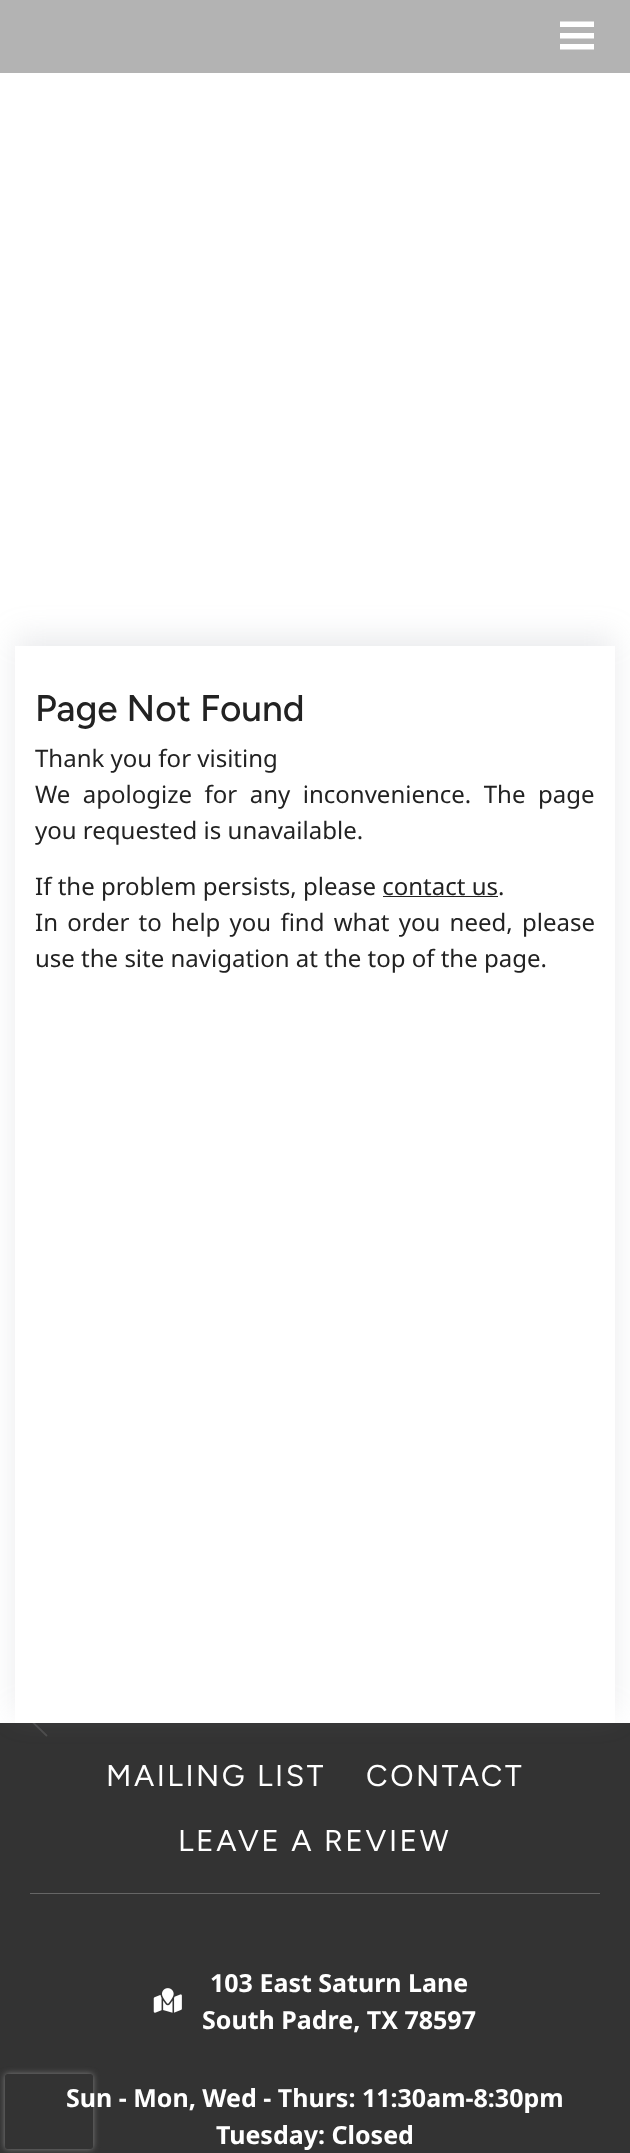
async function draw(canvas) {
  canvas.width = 630;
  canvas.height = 2153;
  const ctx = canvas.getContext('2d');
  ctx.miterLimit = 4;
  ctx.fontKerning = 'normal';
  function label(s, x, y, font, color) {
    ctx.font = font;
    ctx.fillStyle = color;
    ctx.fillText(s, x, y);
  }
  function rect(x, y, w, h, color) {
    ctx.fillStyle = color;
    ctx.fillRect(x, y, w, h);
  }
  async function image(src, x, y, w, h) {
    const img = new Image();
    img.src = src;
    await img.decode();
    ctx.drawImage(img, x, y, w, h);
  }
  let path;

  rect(0, 0, 630, 2153, '#fff');
  rect(0, 0, 630, 73, '#b3b3b3');
  ctx.fillStyle = '#fff';
  path = new Path2D('M594 27H560V21.5H594ZM594 33H560V38.5H594ZM594 44H560V49.5H594Z');
  ctx.fill(path);
  rect(0, 1723, 630, 430, '#333');
  path = new Path2D('M47 1709L33 1722.5L47 1736');
  ctx.strokeStyle = '#66666680';
  ctx.lineWidth = 1.8;
  ctx.stroke(path);
  ctx.fillStyle = '#959da533';
  ctx.filter = 'blur(15px)';
  ctx.beginPath();
  ctx.rect(15, 636, 600, 1077);
  ctx.fill();
  ctx.filter = 'none';
  rect(15, 646, 600, 1077, '#fff');
  label('Page Not Found', 35, 721, '500 37px Figtree', '#222');
  label('Thank you for visiting', 35, 767, '24px Noto Sans', '#222');
  ctx.wordSpacing = '6.25px';
  label('We apologize for any inconvenience. The page', 35, 803, '24px Noto Sans', '#222');
  ctx.wordSpacing = '0px';
  label('you requested is unavailable.', 35, 839, '24px Noto Sans', '#222');
  label('If the problem persists, please contact us.', 35, 895, '24px Noto Sans', '#222');
  rect(383, 896, 115, 1, '#222');
  ctx.wordSpacing = '3px';
  label('In order to help you find what you need, please', 35, 931, '24px Noto Sans', '#222');
  ctx.wordSpacing = '0px';
  label('use the site navigation at the top of the page.', 35, 967, '24px Noto Sans', '#222');
  ctx.letterSpacing = '2.5px';
  label('MAILING LIST', 106, 1786, '30px Figtree', '#fff');
  label('CONTACT', 366, 1786, '30px Figtree', '#fff');
  label('LEAVE A REVIEW', 178, 1851, '30px Figtree', '#fff');
  ctx.save();
  path = new Path2D('M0 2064H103V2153H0ZM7.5 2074H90.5C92 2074 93 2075 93 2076.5V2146.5C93 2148 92 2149 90.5 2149H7.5C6 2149 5 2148 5 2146.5V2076.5C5 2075 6 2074 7.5 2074Z');
  ctx.clip(path, 'evenodd');
  ctx.fillStyle = '#808080';
  ctx.filter = 'blur(3px)';
  ctx.beginPath();
  ctx.roundRect(5, 2074, 88, 75, 2.5);
  ctx.fill();
  ctx.filter = 'none';
  ctx.restore();
  rect(30, 1893, 570, 1, '#666');
  await image('assets/img1.png', 153, 1988, 29, 25);
  ctx.letterSpacing = '0px';
  label('103 East Saturn Lane', 210, 1992, 'bold 25px Noto Sans', '#fff');
  label('South Padre, TX 78597', 202, 2029, 'bold 25px Noto Sans', '#fff');
  label('Sun - Mon, Wed - Thurs: 11:30am-8:30pm', 66, 2107, 'bold 25px Noto Sans', '#fff');
  label('Tuesday: Closed', 216, 2144, 'bold 25px Noto Sans', '#fff');
}

draw(document.querySelector('canvas'));
